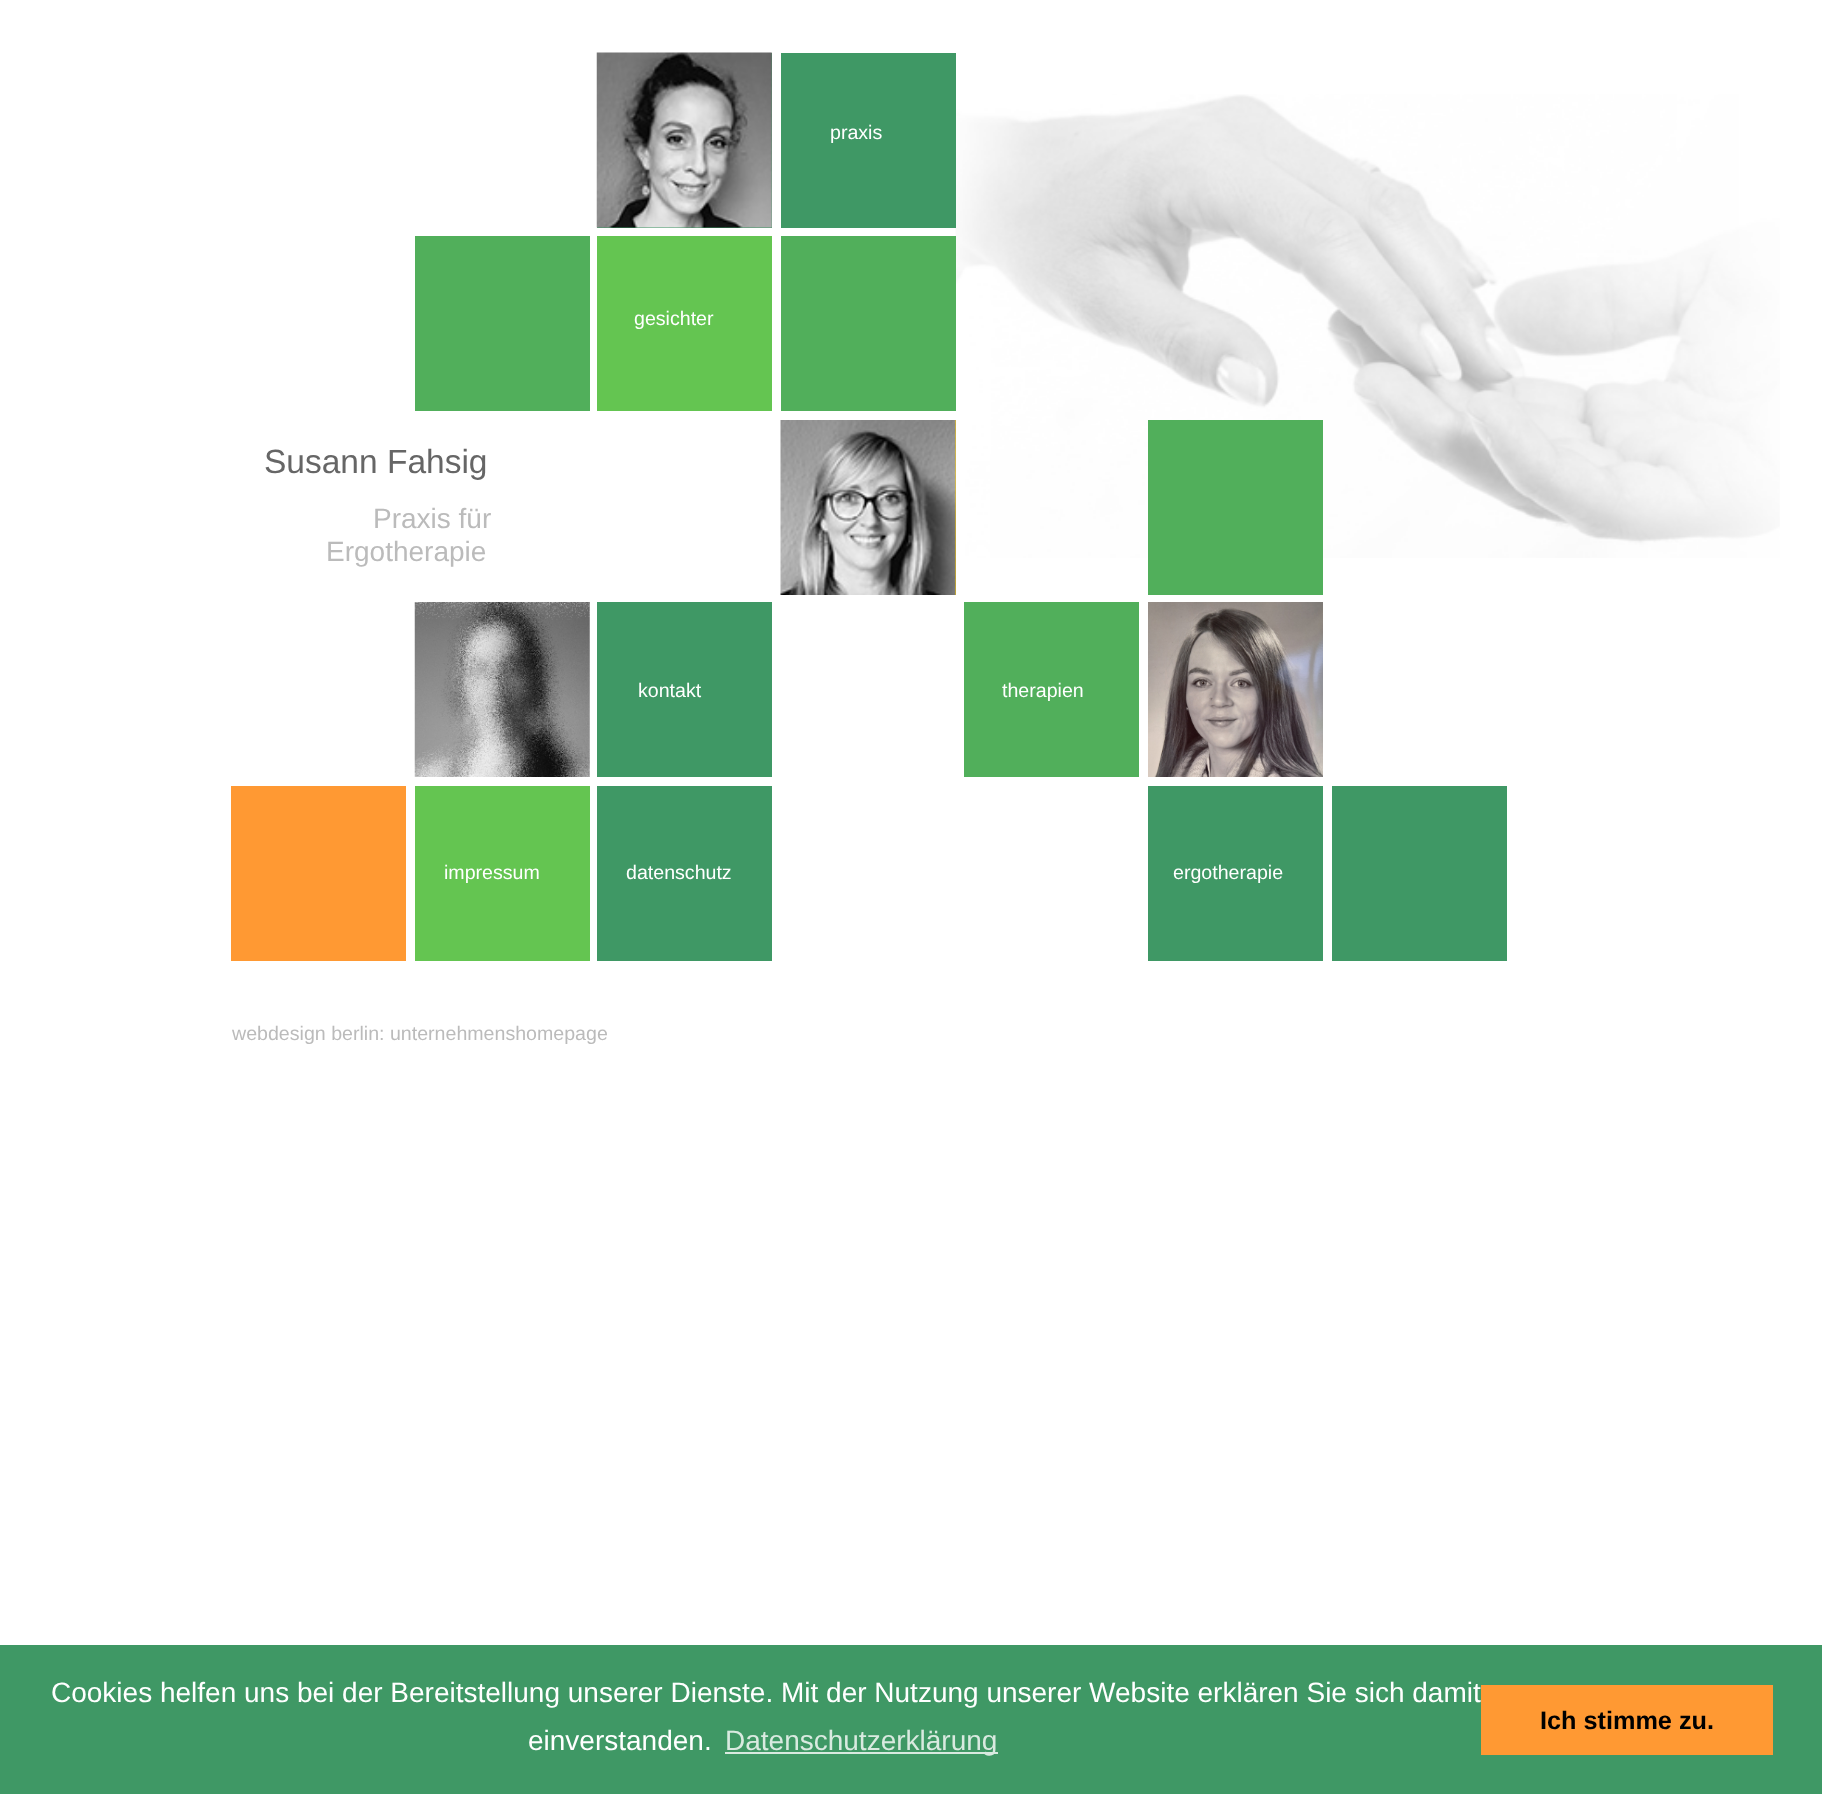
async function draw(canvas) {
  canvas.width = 1822;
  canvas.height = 1794;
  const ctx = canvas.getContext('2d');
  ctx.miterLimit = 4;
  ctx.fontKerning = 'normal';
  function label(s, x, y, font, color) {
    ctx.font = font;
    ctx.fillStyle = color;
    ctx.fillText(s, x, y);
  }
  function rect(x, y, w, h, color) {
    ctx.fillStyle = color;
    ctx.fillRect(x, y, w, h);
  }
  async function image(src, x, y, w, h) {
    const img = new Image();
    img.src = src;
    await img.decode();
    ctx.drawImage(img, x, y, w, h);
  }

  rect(0, 0, 1822, 1794, '#fff');
  rect(597, 53, 175, 175, '#3f9865');
  await image('assets/img1.png', 596, 52, 176, 176);
  await image('assets/img2.png', 955, 94, 825, 464);
  rect(781, 53, 175, 175, '#3f9865');
  label('praxis', 830, 139, '19.6px Liberation Sans', '#fff');
  rect(415, 236, 175, 175, '#51af5b');
  rect(597, 236, 175, 175, '#64c551');
  rect(781, 236, 175, 175, '#51af5b');
  label('gesichter', 634, 325, '19.6px Liberation Sans', '#fff');
  label('Susann Fahsig', 264, 473, '33.5px Liberation Sans', '#666');
  label('Praxis für', 373, 528, '28px Liberation Sans', '#bbb');
  label('Ergotherapie', 326, 561, '28px Liberation Sans', '#bbb');
  rect(955, 420, 1, 175, '#fc0');
  await image('assets/img3.png', 780, 420, 176, 175);
  rect(1148, 420, 175, 175, '#51af5b');
  await image('assets/img4.png', 414, 602, 176, 175);
  rect(597, 602, 175, 175, '#3f9865');
  rect(964, 602, 175, 175, '#51af5b');
  await image('assets/img5.png', 1148, 602, 175, 175);
  label('kontakt', 638, 697, '19.6px Liberation Sans', '#fff');
  label('therapien', 1002, 697, '19.6px Liberation Sans', '#fff');
  rect(231, 786, 175, 175, '#f93');
  rect(415, 786, 175, 175, '#64c551');
  rect(597, 786, 175, 175, '#3f9865');
  rect(1148, 786, 175, 175, '#3f9865');
  rect(1332, 786, 175, 175, '#3f9865');
  label('impressum', 444, 879, '19.6px Liberation Sans', '#fff');
  label('datenschutz', 626, 879, '19.6px Liberation Sans', '#fff');
  label('ergotherapie', 1173, 879, '19.6px Liberation Sans', '#fff');
  label('webdesign berlin: unternehmenshomepage', 232, 1040, '19.6px Liberation Sans', '#bbb');
  rect(0, 1645, 1822, 149, '#3f9865');
  label('Cookies helfen uns bei der Bereitstellung unserer Dienste. Mit der Nutzung unserer Website erklären Sie sich damit', 51, 1702, '28px Liberation Sans', '#fff');
  label('einverstanden.', 528, 1750, '28px Liberation Sans', '#fff');
  rect(725, 1752, 273, 2, '#d9eae0');
  label('Datenschutzerklärung', 725, 1750, '28px Liberation Sans', '#d9eae0');
  rect(1481, 1685, 292, 70, '#f93');
  label('Ich stimme zu.', 1540, 1729, 'bold 25.25px Liberation Sans', '#000');
}

draw(document.querySelector('canvas'));
